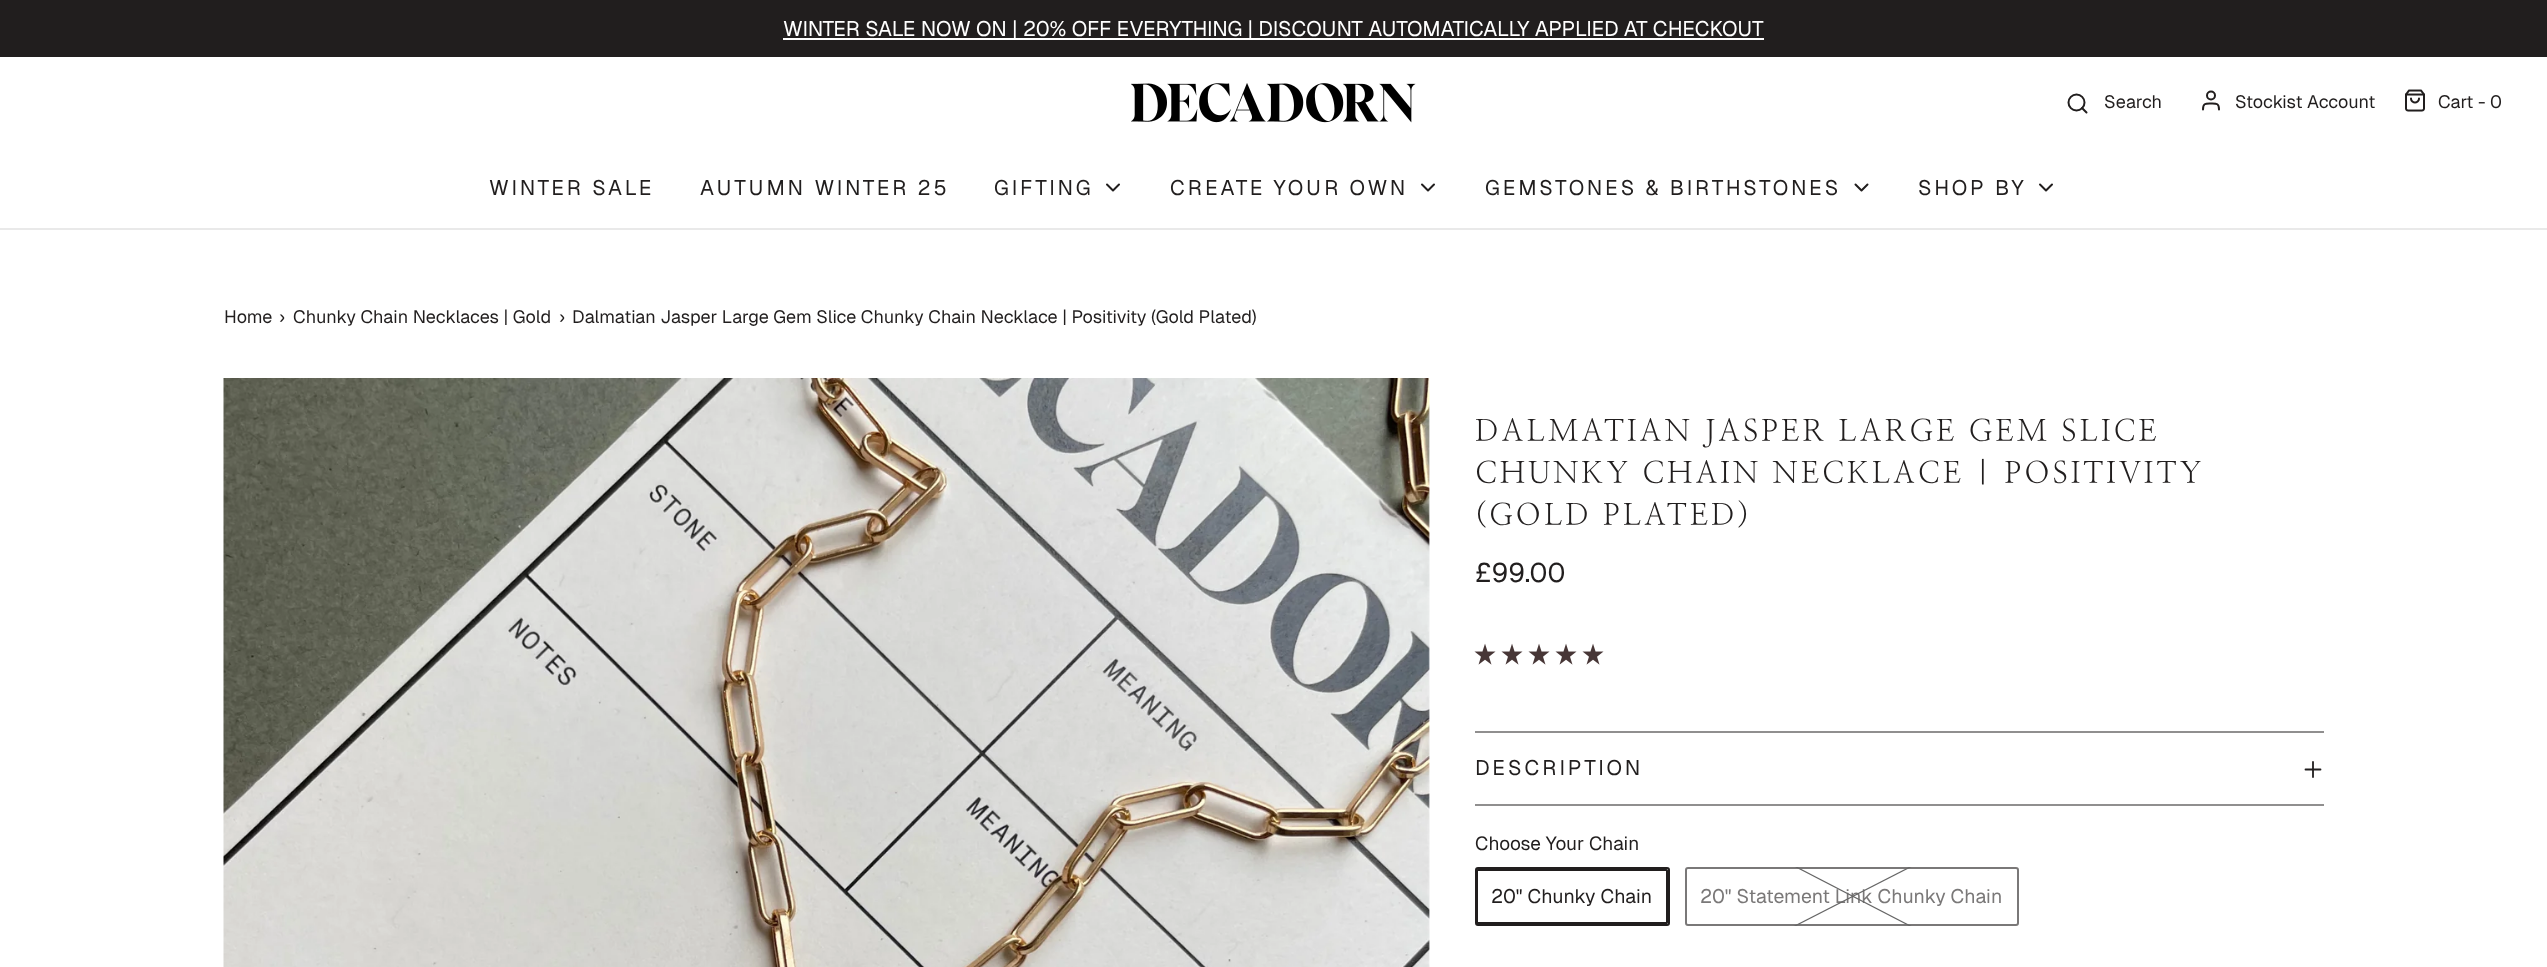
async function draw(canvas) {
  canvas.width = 2547;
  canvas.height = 967;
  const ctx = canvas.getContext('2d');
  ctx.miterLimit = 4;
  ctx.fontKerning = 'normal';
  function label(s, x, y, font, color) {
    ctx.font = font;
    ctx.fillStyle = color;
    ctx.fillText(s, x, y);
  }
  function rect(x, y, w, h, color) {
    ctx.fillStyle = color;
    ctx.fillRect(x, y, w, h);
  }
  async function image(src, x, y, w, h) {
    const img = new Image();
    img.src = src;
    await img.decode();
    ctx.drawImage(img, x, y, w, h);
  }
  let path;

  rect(0, 0, 2547, 967, '#fff');
  rect(0, 0, 2547, 57, '#211e1e');
  rect(783, 38, 981, 2, '#fff');
  label('WINTER SALE NOW ON | 20% OFF EVERYTHING | DISCOUNT AUTOMATICALLY APPLIED AT CHECKOUT', 783, 36, '21px Geist', '#fff');
  rect(0, 228, 2547, 2, '#e9e9e9');
  await image('assets/img1.png', 1131, 83, 285, 40);
  ctx.beginPath();
  ctx.arc(2076.5, 102.5, 8, 0, 2 * Math.PI);
  ctx.strokeStyle = '#211e1e';
  ctx.lineWidth = 2;
  ctx.stroke();
  label('Search', 2104, 108, '18px Geist', '#211e1e');
  path = new Path2D('M2086.5 112.5L2082 108');
  ctx.lineCap = 'round';
  ctx.lineJoin = 'round';
  ctx.stroke(path);
  path = new Path2D('M2219 109.5C2219 103 2216.5 103.5 2211 103.5C2205.5 103.5 2203 103 2203 109.5');
  ctx.stroke(path);
  ctx.beginPath();
  ctx.arc(2211, 95.5, 4, 0, 2 * Math.PI);
  ctx.stroke();
  label('Stockist Account', 2235, 108, '18px Geist', '#211e1e');
  await image('assets/img2.png', 2405, 89, 20, 23);
  label('Cart - 0', 2438, 108, '18px Geist', '#211e1e');
  ctx.letterSpacing = '3px';
  label('WINTER SALE', 489, 195, '21px Geist', '#211e1e');
  label('AUTUMN WINTER 25', 700, 195, '21px Geist', '#211e1e');
  label('GIFTING', 994, 195, '21px Geist', '#211e1e');
  path = new Path2D('M1107 184.5L1113 190.5L1119 184.5');
  ctx.stroke(path);
  label('CREATE YOUR OWN', 1170, 195, '21px Geist', '#211e1e');
  path = new Path2D('M1422 184.5L1428 190.5L1434 184.5');
  ctx.stroke(path);
  label('GEMSTONES & BIRTHSTONES', 1485, 195, '21px Geist', '#211e1e');
  path = new Path2D('M1855.5 184.5L1861.5 190.5L1867.5 184.5');
  ctx.stroke(path);
  label('SHOP BY', 1918, 195, '21px Geist', '#211e1e');
  path = new Path2D('M2040 184.5L2046 190.5L2052 184.5');
  ctx.stroke(path);
  ctx.letterSpacing = '0px';
  label('Home', 224, 323, '18px Geist', '#211e1e');
  label('›', 279, 323, '18px Geist', '#211e1e');
  label('Chunky Chain Necklaces | Gold', 293, 323, '18px Geist', '#211e1e');
  label('›', 559, 323, '18px Geist', '#211e1e');
  label('Dalmatian Jasper Large Gem Slice Chunky Chain Necklace | Positivity (Gold Plated)', 572, 323, '18px Geist', '#211e1e');
  await image('assets/img3.png', 223, 378, 1207, 589);
  ctx.letterSpacing = '3px';
  label('DALMATIAN JASPER LARGE GEM SLICE', 1475, 441, '30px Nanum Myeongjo', '#211e1e');
  label('CHUNKY CHAIN NECKLACE | POSITIVITY', 1475, 483, '30px Nanum Myeongjo', '#211e1e');
  label('(GOLD PLATED)', 1475, 525, '30px Nanum Myeongjo', '#211e1e');
  ctx.letterSpacing = '0px';
  label('£99.00', 1475, 582, '27px Geist', '#211e1e');
  await image('assets/img4.png', 1474, 643, 22, 22);
  await image('assets/img4.png', 1501, 643, 22, 22);
  await image('assets/img4.png', 1528, 643, 22, 22);
  await image('assets/img4.png', 1555, 643, 22, 22);
  await image('assets/img4.png', 1582, 643, 22, 22);
  rect(1475, 731, 849, 2, '#908f8f');
  rect(1475, 804, 849, 2, '#908f8f');
  ctx.letterSpacing = '3px';
  label('DESCRIPTION', 1475, 775, '21px Geist', '#211e1e');
  path = new Path2D('M2320.5 769.5H2305.5M2313 762V777');
  ctx.lineWidth = 1.8;
  ctx.stroke(path);
  ctx.letterSpacing = '0px';
  label('Choose Your Chain', 1475, 850, '19px Geist', '#211e1e');
  ctx.beginPath();
  ctx.roundRect(1477, 870, 190, 53, 0.5);
  ctx.lineWidth = 2;
  ctx.lineJoin = 'miter';
  ctx.stroke();
  ctx.beginPath();
  ctx.roundRect(1476, 868, 193, 57, 2);
  ctx.stroke();
  label('20" Chunky Chain', 1491, 903, '19.5px Geist', '#211e1e');
  ctx.beginPath();
  ctx.roundRect(1686, 868, 332, 57, 2);
  ctx.strokeStyle = '#7a7878';
  ctx.stroke();
  label('20" Statement Link Chunky Chain', 1700, 903, '19.5px Geist', '#7a7878');
  ctx.save();
  ctx.beginPath();
  ctx.rect(1685, 867, 334, 59);
  ctx.clip();
  path = new Path2D('M1917 929.5L1787.5 862.5');
  ctx.strokeStyle = '#666';
  ctx.lineWidth = 1.2;
  ctx.lineCap = 'butt';
  ctx.stroke(path);
  path = new Path2D('M1788 929.5L1919 862.5');
  ctx.stroke(path);
  ctx.restore();
}

draw(document.querySelector('canvas'));
